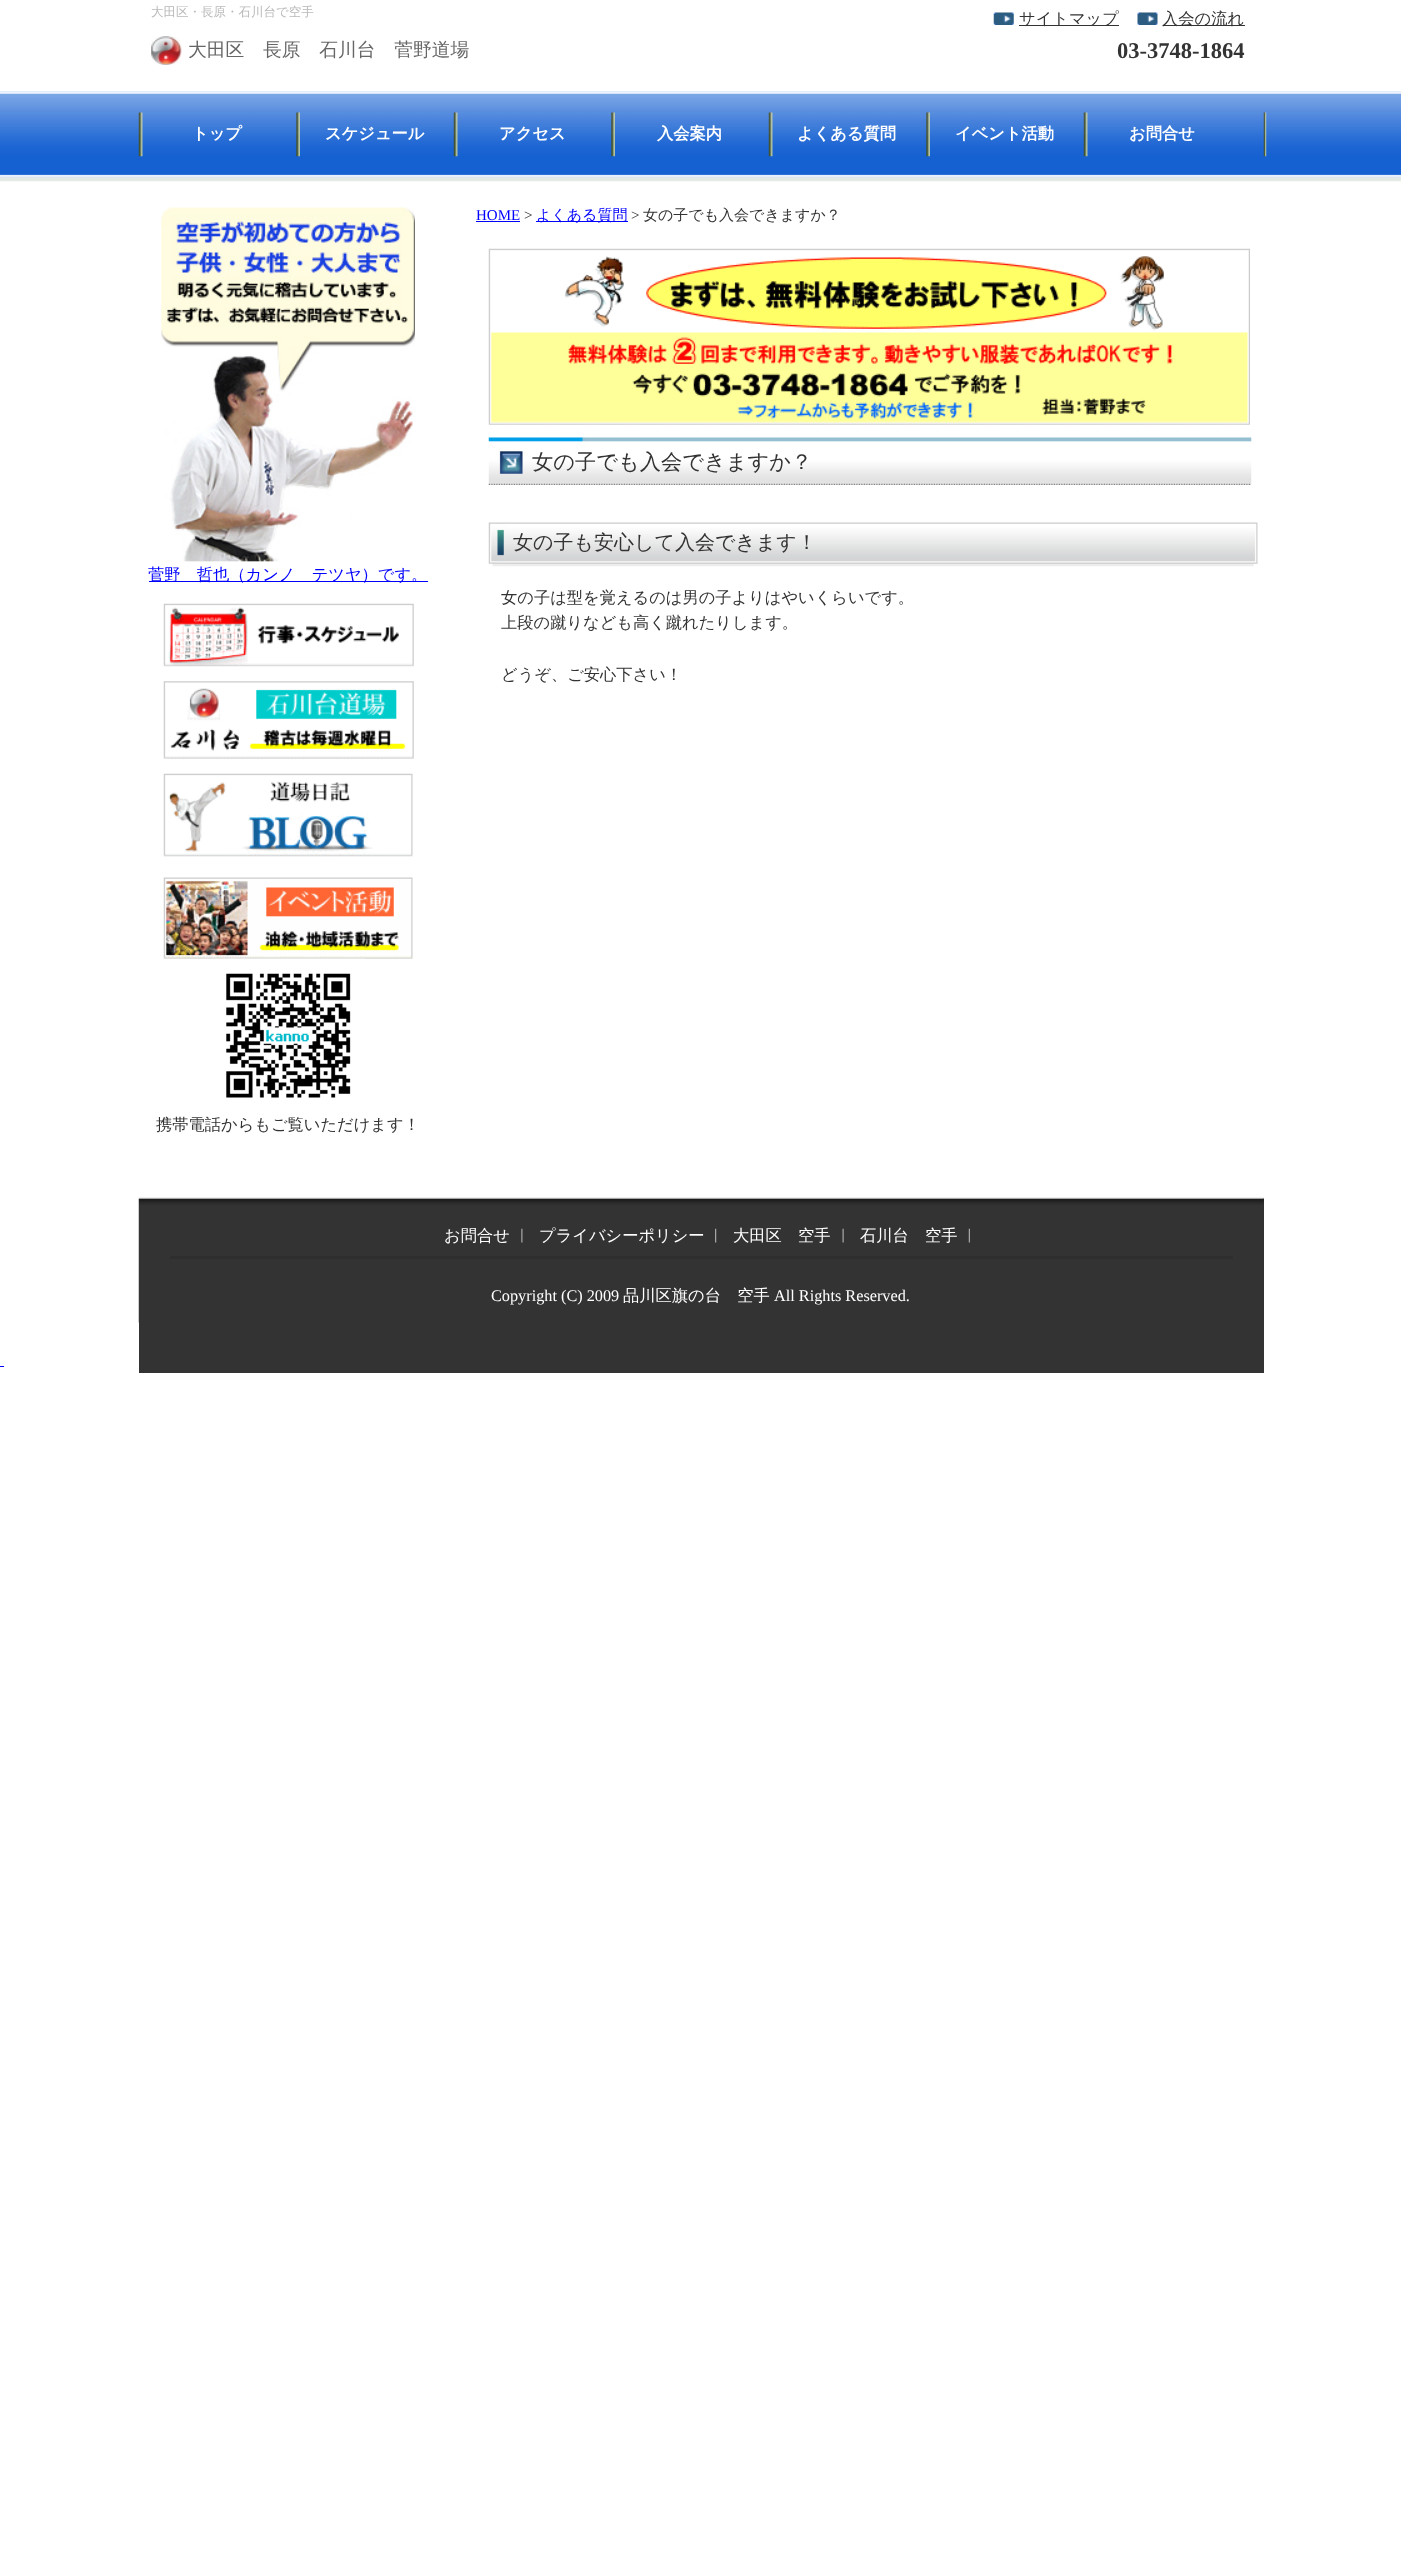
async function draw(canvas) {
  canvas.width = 1401;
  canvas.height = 2557;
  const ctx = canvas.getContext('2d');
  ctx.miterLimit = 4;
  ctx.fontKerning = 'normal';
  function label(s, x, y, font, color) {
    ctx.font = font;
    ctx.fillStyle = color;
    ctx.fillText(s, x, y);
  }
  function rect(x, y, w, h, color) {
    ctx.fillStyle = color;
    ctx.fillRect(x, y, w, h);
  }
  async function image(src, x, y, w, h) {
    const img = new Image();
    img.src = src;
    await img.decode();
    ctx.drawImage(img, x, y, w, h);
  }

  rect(0, 0, 1401, 2557, '#fff');
  await image('assets/img1.png', 0, 91, 1401, 91);
  label('大田区・長原・石川台で空手', 151, 16, '500 12.5px WenQuanYi Zen Hei', '#b9b9b9');
  await image('assets/img2.png', 993, 12, 21, 13);
  rect(1019, 25, 100, 1, '#333');
  label('サイトマップ', 1019, 24, '500 16.25px WenQuanYi Zen Hei', '#333');
  await image('assets/img3.png', 1137, 12, 21, 13);
  rect(1163, 25, 82, 1, '#333');
  label('入会の流れ', 1162, 24, '500 16.25px WenQuanYi Zen Hei', '#333');
  await image('assets/img4.png', 151, 36, 31, 29);
  label('大田区　長原　石川台　菅野道場', 188, 56, '500 18.75px WenQuanYi Zen Hei', '#666');
  label('03-3748-1864', 1117, 58, 'bold 22.5px Liberation Serif', '#333');
  await image('assets/img5.png', 1263, 112, 4, 45);
  await image('assets/img6.png', 138, 112, 5, 45);
  label('トップ', 192, 139, 'bold 16.25px WenQuanYi Zen Hei', '#fff');
  await image('assets/img7.png', 296, 112, 4, 45);
  label('スケジュール', 325, 139, 'bold 16.25px WenQuanYi Zen Hei', '#fff');
  await image('assets/img8.png', 453, 112, 5, 45);
  label('アクセス', 499, 139, 'bold 16.25px WenQuanYi Zen Hei', '#fff');
  await image('assets/img9.png', 611, 112, 4, 45);
  label('入会案内', 657, 139, 'bold 16.25px WenQuanYi Zen Hei', '#fff');
  await image('assets/img8.png', 768, 112, 5, 45);
  label('よくある質問', 797, 139, 'bold 16.25px WenQuanYi Zen Hei', '#fff');
  await image('assets/img9.png', 926, 112, 4, 45);
  label('イベント活動', 955, 139, 'bold 16.25px WenQuanYi Zen Hei', '#fff');
  await image('assets/img8.png', 1083, 112, 5, 45);
  label('お問合せ', 1129, 139, 'bold 16.25px WenQuanYi Zen Hei', '#fff');
  label('HOME', 476, 220, '15px Liberation Serif', '#00f');
  rect(476, 221, 44, 1, '#00f');
  label('>', 524, 220, '15px Liberation Serif', '#333');
  rect(536, 221, 92, 1, '#00f');
  label('よくある質問', 536, 220, '500 15px WenQuanYi Zen Hei', '#00f');
  label('>', 631, 220, '15px Liberation Serif', '#333');
  label('女の子でも入会できますか？', 643, 220, '500 15px WenQuanYi Zen Hei', '#333');
  await image('assets/img10.png', 488, 248, 762, 177);
  await image('assets/img11.png', 488, 437, 764, 48);
  label('女の子でも入会できますか？', 532, 469, '500 21.25px WenQuanYi Zen Hei', '#333');
  await image('assets/img12.png', 488, 522, 770, 45);
  label('女の子も安心して入会できます！', 513, 549, '500 20px WenQuanYi Zen Hei', '#333');
  label('女の子は型を覚えるのは男の子よりはやいくらいです。', 501, 603, '500 16.25px WenQuanYi Zen Hei', '#333');
  label('上段の蹴りなども高く蹴れたりします。', 501, 628, '500 16.25px WenQuanYi Zen Hei', '#333');
  label('どうぞ、ご安心下さい！', 501, 680, '500 16.25px WenQuanYi Zen Hei', '#333');
  await image('assets/img13.png', 161, 207, 254, 355);
  rect(149, 581, 279, 1, '#00f');
  label('菅野　哲也（カンノ　テツヤ）です。', 148, 580, '500 16.25px WenQuanYi Zen Hei', '#00f');
  await image('assets/img14.png', 163, 603, 251, 64);
  await image('assets/img15.png', 163, 681, 251, 78);
  await image('assets/img16.png', 163, 773, 250, 84);
  await image('assets/img17.png', 163, 877, 250, 82);
  await image('assets/img18.png', 211, 958, 154, 140);
  label('携帯電話からもご覧いただけます！', 156, 1130, '500 16.25px WenQuanYi Zen Hei', '#333');
  rect(139, 1198, 1125, 175, '#333');
  await image('assets/img19.png', 138, 1197, 1126, 126);
  rect(170, 1256, 1063, 3, '#2e2e2e');
  label('お問合せ', 444, 1241, '500 16.25px WenQuanYi Zen Hei', '#fff');
  await image('assets/img20.png', 521, 1228, 2, 15);
  label('プライバシーポリシー', 539, 1241, '500 16.25px WenQuanYi Zen Hei', '#fff');
  await image('assets/img21.png', 715, 1228, 2, 15);
  label('大田区　空手', 733, 1241, '500 16.25px WenQuanYi Zen Hei', '#fff');
  await image('assets/img22.png', 842, 1228, 2, 15);
  label('石川台　空手', 860, 1241, '500 16.25px WenQuanYi Zen Hei', '#fff');
  await image('assets/img23.png', 968, 1228, 2, 15);
  label('Copyright (C) 2009', 491, 1301, '16.25px Liberation Serif', '#fff');
  label('品川区旗の台　空手', 623, 1301, '500 16.25px WenQuanYi Zen Hei', '#fff');
  label('All Rights Reserved.', 774, 1301, '16.25px Liberation Serif', '#fff');
  rect(0, 1366, 4, 1, '#00f');
}

draw(document.querySelector('canvas'));
